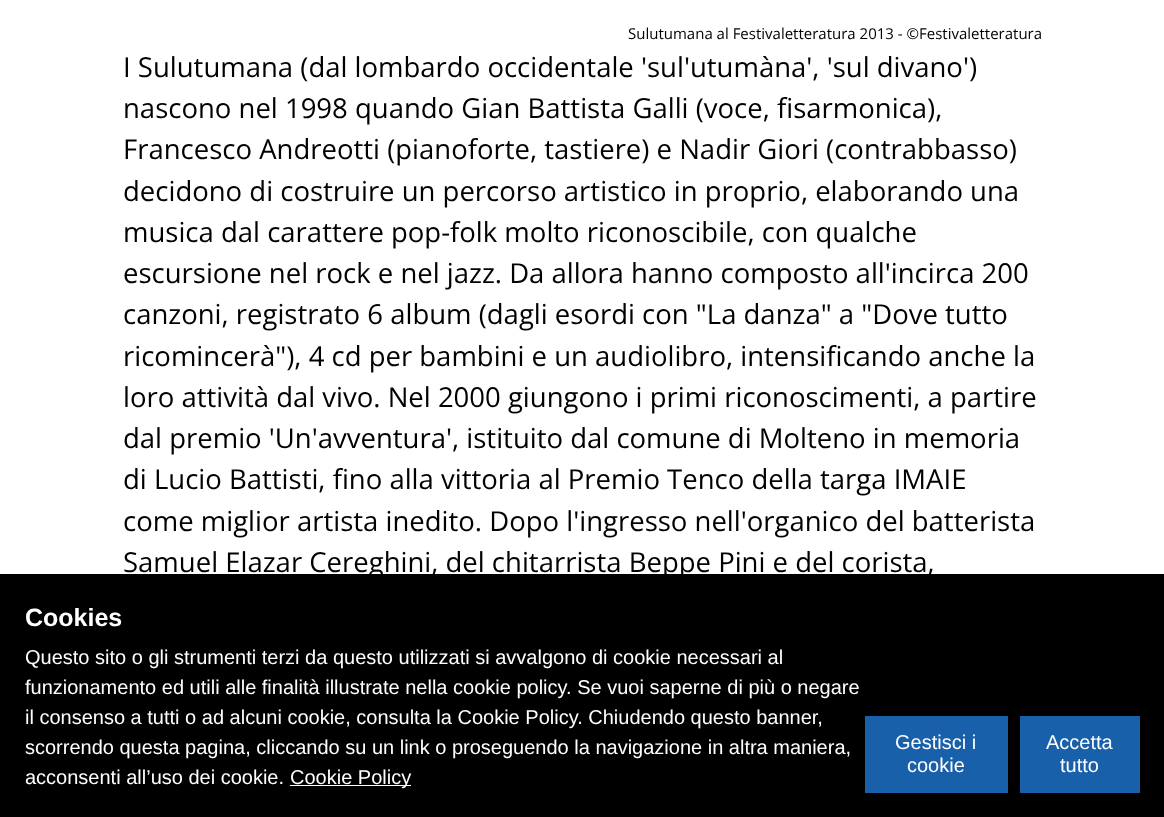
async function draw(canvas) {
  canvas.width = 1164;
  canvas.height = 817;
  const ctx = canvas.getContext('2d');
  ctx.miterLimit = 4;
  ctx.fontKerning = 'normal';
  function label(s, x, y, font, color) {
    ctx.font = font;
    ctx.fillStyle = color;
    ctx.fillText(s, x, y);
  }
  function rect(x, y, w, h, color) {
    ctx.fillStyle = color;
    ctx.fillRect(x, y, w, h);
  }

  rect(0, 0, 1164, 817, '#fff');
  label('Sulutumana al Festivaletteratura 2013 - ©Festivaletteratura', 628, 39, '15px Open Sans', '#000');
  label('I Sulutumana (dal lombardo occidentale \'sul\'utumàna\', \'sul divano\')', 123, 77, '27.5px Open Sans', '#000');
  label('nascono nel 1998 quando Gian Battista Galli (voce, fisarmonica),', 123, 118, '27.5px Open Sans', '#000');
  label('Francesco Andreotti (pianoforte, tastiere) e Nadir Giori (contrabbasso)', 123, 159, '27.5px Open Sans', '#000');
  label('decidono di costruire un percorso artistico in proprio, elaborando una', 123, 201, '27.5px Open Sans', '#000');
  label('musica dal carattere pop-folk molto riconoscibile, con qualche', 123, 242, '27.5px Open Sans', '#000');
  label('escursione nel rock e nel jazz. Da allora hanno composto all\'incirca 200', 123, 283, '27.5px Open Sans', '#000');
  label('canzoni, registrato 6 album (dagli esordi con "La danza" a "Dove tutto', 123, 324, '27.5px Open Sans', '#000');
  label('ricomincerà"), 4 cd per bambini e un audiolibro, intensificando anche la', 123, 366, '27.5px Open Sans', '#000');
  label('loro attività dal vivo. Nel 2000 giungono i primi riconoscimenti, a partire', 123, 407, '27.5px Open Sans', '#000');
  label('dal premio \'Un\'avventura\', istituito dal comune di Molteno in memoria', 123, 448, '27.5px Open Sans', '#000');
  label('di Lucio Battisti, fino alla vittoria al Premio Tenco della targa IMAIE', 123, 489, '27.5px Open Sans', '#000');
  label('come miglior artista inedito. Dopo l\'ingresso nell\'organico del batterista', 123, 531, '27.5px Open Sans', '#000');
  label('Samuel Elazar Cereghini, del chitarrista Beppe Pini e del corista,', 123, 572, '27.5px Open Sans', '#000');
  rect(0, 574, 1164, 243, '#000');
  label('Cookies', 25, 626, 'bold 25px Liberation Sans', '#fff');
  label('Questo sito o gli strumenti terzi da questo utilizzati si avvalgono di cookie necessari al', 25, 664, '20px Liberation Sans', '#fff');
  label('funzionamento ed utili alle finalità illustrate nella cookie policy. Se vuoi saperne di più o negare', 25, 694, '20px Liberation Sans', '#fff');
  label('il consenso a tutti o ad alcuni cookie, consulta la Cookie Policy. Chiudendo questo banner,', 25, 724, '20px Liberation Sans', '#fff');
  label('scorrendo questa pagina, cliccando su un link o proseguendo la navigazione in altra maniera,', 25, 754, '20px Liberation Sans', '#fff');
  label('acconsenti all’uso dei cookie.', 25, 784, '20px Liberation Sans', '#fff');
  rect(290, 785, 121, 1, '#fff');
  label('Cookie Policy', 290, 784, '20px Liberation Sans', '#fff');
  rect(865, 716, 143, 77, '#1960ab');
  label('Gestisci i', 895, 749, '20px Liberation Sans', '#fff');
  label('cookie', 907, 772, '20px Liberation Sans', '#fff');
  rect(1020, 716, 120, 77, '#1960ab');
  label('Accetta', 1046, 749, '20px Liberation Sans', '#fff');
  label('tutto', 1060, 772, '20px Liberation Sans', '#fff');
}

draw(document.querySelector('canvas'));
